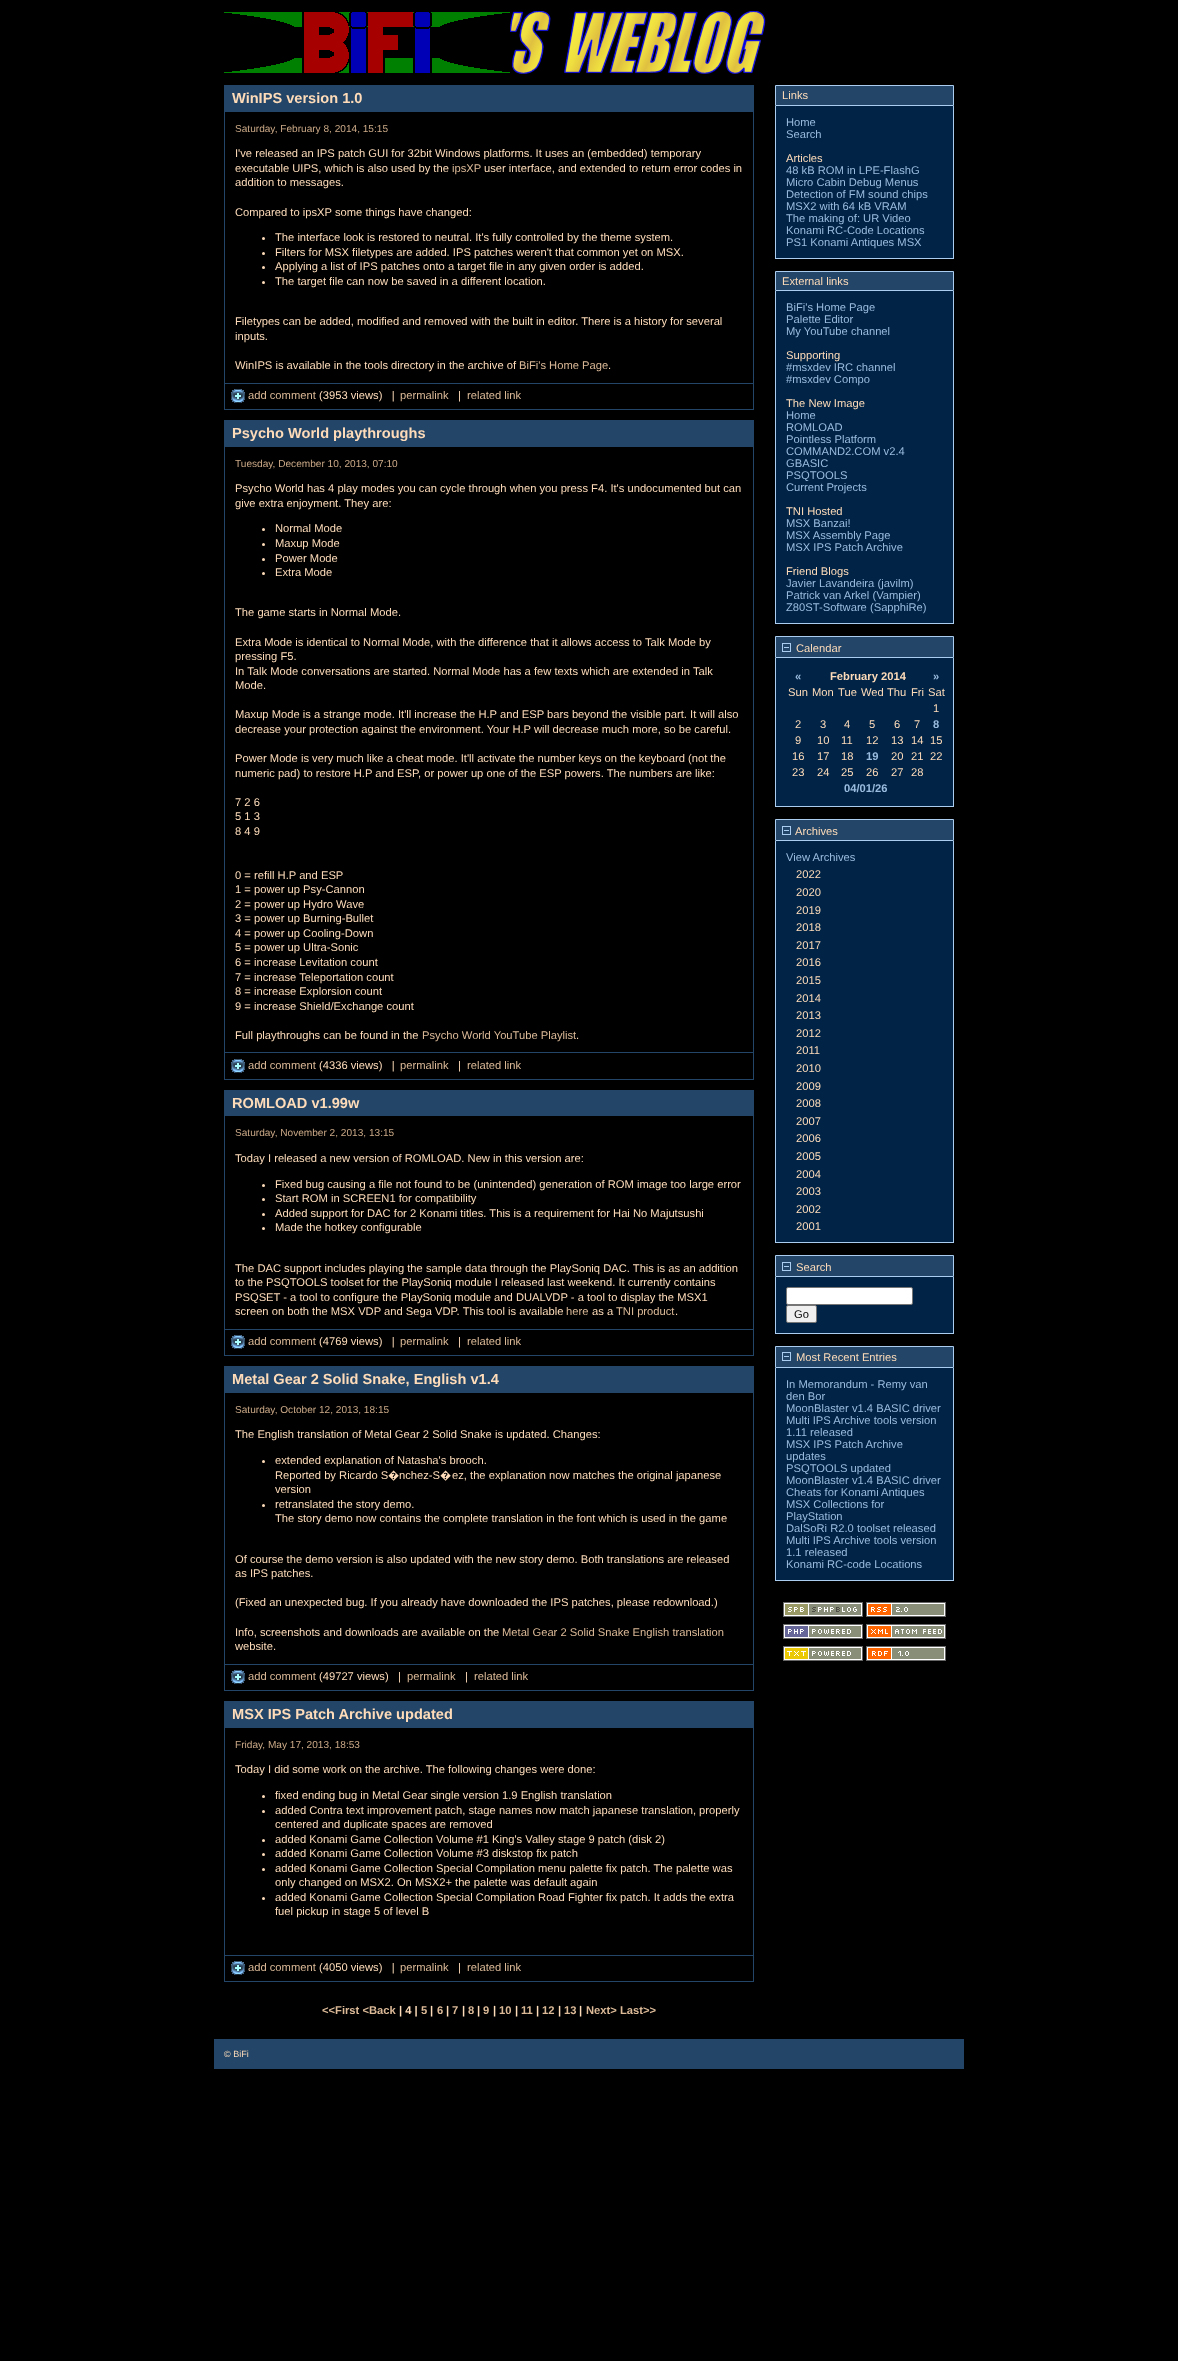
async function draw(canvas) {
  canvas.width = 1178;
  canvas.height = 2361;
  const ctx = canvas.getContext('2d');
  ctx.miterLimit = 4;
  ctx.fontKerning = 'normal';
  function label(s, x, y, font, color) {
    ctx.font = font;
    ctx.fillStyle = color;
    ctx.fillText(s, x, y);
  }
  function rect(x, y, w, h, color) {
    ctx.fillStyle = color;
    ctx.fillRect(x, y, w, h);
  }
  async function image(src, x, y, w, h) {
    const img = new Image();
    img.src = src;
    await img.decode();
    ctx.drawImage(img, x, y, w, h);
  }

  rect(0, 0, 1178, 2361, '#000');
  await image('assets/img1.png', 224, 11, 542, 63);
  rect(225, 86, 528, 25, '#234567');
  rect(224, 85, 530, 1, '#234567');
  rect(753, 85, 1, 26, '#234567');
  rect(224, 85, 1, 26, '#234567');
  label('WinIPS version 1.0', 232, 103, 'bold 14.6px Liberation Sans', '#fedcba');
  ctx.strokeStyle = '#234567';
  ctx.strokeRect(224.5, 111.5, 529, 272);
  label('Saturday, February 8, 2014, 15:15', 235, 132, '10.1px Liberation Sans', '#cba987');
  label('I\'ve released an IPS patch GUI for 32bit Windows platforms. It uses an (embedded) temporary', 235, 157, '11.2px Liberation Sans', '#fedcba');
  label('executable UIPS, which is also used by the', 235, 172, '11.2px Liberation Sans', '#fedcba');
  label('ipsXP', 452, 172, '11.2px Liberation Sans', '#dcba98');
  label('user interface, and extended to return error codes in', 484, 172, '11.2px Liberation Sans', '#fedcba');
  label('addition to messages.', 235, 186, '11.2px Liberation Sans', '#fedcba');
  label('Compared to ipsXP some things have changed:', 235, 216, '11.2px Liberation Sans', '#fedcba');
  ctx.beginPath();
  ctx.arc(263.5, 238.5, 1.5, 0, 2 * Math.PI);
  ctx.fill();
  label('The interface look is restored to neutral. It\'s fully controlled by the theme system.', 275, 241, '11.2px Liberation Sans', '#fedcba');
  ctx.beginPath();
  ctx.arc(263.5, 253.5, 1.5, 0, 2 * Math.PI);
  ctx.fill();
  label('Filters for MSX filetypes are added. IPS patches weren\'t that common yet on MSX.', 275, 256, '11.2px Liberation Sans', '#fedcba');
  ctx.beginPath();
  ctx.arc(263.5, 267.5, 1.5, 0, 2 * Math.PI);
  ctx.fill();
  label('Applying a list of IPS patches onto a target file in any given order is added.', 275, 270, '11.2px Liberation Sans', '#fedcba');
  ctx.beginPath();
  ctx.arc(263.5, 282.5, 1.5, 0, 2 * Math.PI);
  ctx.fill();
  label('The target file can now be saved in a different location.', 275, 285, '11.2px Liberation Sans', '#fedcba');
  label('Filetypes can be added, modified and removed with the built in editor. There is a history for several', 235, 325, '11.2px Liberation Sans', '#fedcba');
  label('inputs.', 235, 340, '11.2px Liberation Sans', '#fedcba');
  label('WinIPS is available in the tools directory in the archive of', 235, 369, '11.2px Liberation Sans', '#fedcba');
  label('BiFi\'s Home Page', 519, 369, '11.2px Liberation Sans', '#dcba98');
  label('.', 608, 369, '11.2px Liberation Sans', '#fedcba');
  rect(753, 384, 1, 26, '#234567');
  rect(224, 409, 530, 1, '#234567');
  rect(224, 384, 1, 26, '#234567');
  await image('assets/img2.png', 231, 389, 14, 14);
  label('add comment', 248, 399, '11.2px Liberation Sans', '#dcba98');
  label('(3953 views)   |', 319, 399, '11.2px Liberation Sans', '#fedcba');
  label('permalink', 400, 399, '11.2px Liberation Sans', '#dcba98');
  label('|', 458, 399, '11.2px Liberation Sans', '#fedcba');
  label('related link', 467, 399, '11.2px Liberation Sans', '#dcba98');
  rect(225, 421, 528, 25, '#234567');
  rect(224, 420, 530, 1, '#234567');
  rect(753, 420, 1, 26, '#234567');
  rect(224, 420, 1, 26, '#234567');
  label('Psycho World playthroughs', 232, 438, 'bold 14.6px Liberation Sans', '#fedcba');
  ctx.strokeRect(224.5, 446.5, 529, 606);
  label('Tuesday, December 10, 2013, 07:10', 235, 467, '10.1px Liberation Sans', '#cba987');
  label('Psycho World has 4 play modes you can cycle through when you press F4. It\'s undocumented but can', 235, 492, '11.2px Liberation Sans', '#fedcba');
  label('give extra enjoyment. They are:', 235, 507, '11.2px Liberation Sans', '#fedcba');
  ctx.beginPath();
  ctx.arc(263.5, 529.5, 1.5, 0, 2 * Math.PI);
  ctx.fill();
  label('Normal Mode', 275, 532, '11.2px Liberation Sans', '#fedcba');
  ctx.beginPath();
  ctx.arc(263.5, 544.5, 1.5, 0, 2 * Math.PI);
  ctx.fill();
  label('Maxup Mode', 275, 547, '11.2px Liberation Sans', '#fedcba');
  ctx.beginPath();
  ctx.arc(263.5, 559.5, 1.5, 0, 2 * Math.PI);
  ctx.fill();
  label('Power Mode', 275, 562, '11.2px Liberation Sans', '#fedcba');
  ctx.beginPath();
  ctx.arc(263.5, 573.5, 1.5, 0, 2 * Math.PI);
  ctx.fill();
  label('Extra Mode', 275, 576, '11.2px Liberation Sans', '#fedcba');
  label('The game starts in Normal Mode.', 235, 616, '11.2px Liberation Sans', '#fedcba');
  label('Extra Mode is identical to Normal Mode, with the difference that it allows access to Talk Mode by', 235, 646, '11.2px Liberation Sans', '#fedcba');
  label('pressing F5.', 235, 660, '11.2px Liberation Sans', '#fedcba');
  label('In Talk Mode conversations are started. Normal Mode has a few texts which are extended in Talk', 235, 675, '11.2px Liberation Sans', '#fedcba');
  label('Mode.', 235, 689, '11.2px Liberation Sans', '#fedcba');
  label('Maxup Mode is a strange mode. It\'ll increase the H.P and ESP bars beyond the visible part. It will also', 235, 718, '11.2px Liberation Sans', '#fedcba');
  label('decrease your protection against the environment. Your H.P will decrease much more, so be careful.', 235, 733, '11.2px Liberation Sans', '#fedcba');
  label('Power Mode is very much like a cheat mode. It\'ll activate the number keys on the keyboard (not the', 235, 762, '11.2px Liberation Sans', '#fedcba');
  label('numeric pad) to restore H.P and ESP, or power up one of the ESP powers. The numbers are like:', 235, 777, '11.2px Liberation Sans', '#fedcba');
  label('7 2 6', 235, 806, '11.2px Liberation Sans', '#fedcba');
  label('5 1 3', 235, 820, '11.2px Liberation Sans', '#fedcba');
  label('8 4 9', 235, 835, '11.2px Liberation Sans', '#fedcba');
  label('0 = refill H.P and ESP', 235, 879, '11.2px Liberation Sans', '#fedcba');
  label('1 = power up Psy-Cannon', 235, 893, '11.2px Liberation Sans', '#fedcba');
  label('2 = power up Hydro Wave', 235, 908, '11.2px Liberation Sans', '#fedcba');
  label('3 = power up Burning-Bullet', 235, 922, '11.2px Liberation Sans', '#fedcba');
  label('4 = power up Cooling-Down', 235, 937, '11.2px Liberation Sans', '#fedcba');
  label('5 = power up Ultra-Sonic', 235, 951, '11.2px Liberation Sans', '#fedcba');
  label('6 = increase Levitation count', 235, 966, '11.2px Liberation Sans', '#fedcba');
  label('7 = increase Teleportation count', 235, 981, '11.2px Liberation Sans', '#fedcba');
  label('8 = increase Explorsion count', 235, 995, '11.2px Liberation Sans', '#fedcba');
  label('9 = increase Shield/Exchange count', 235, 1010, '11.2px Liberation Sans', '#fedcba');
  label('Full playthroughs can be found in the', 235, 1039, '11.2px Liberation Sans', '#fedcba');
  label('Psycho World YouTube Playlist', 422, 1039, '11.2px Liberation Sans', '#dcba98');
  label('.', 576, 1039, '11.2px Liberation Sans', '#fedcba');
  rect(753, 1053, 1, 27, '#234567');
  rect(224, 1079, 530, 1, '#234567');
  rect(224, 1053, 1, 27, '#234567');
  await image('assets/img2.png', 231, 1059, 14, 14);
  label('add comment', 248, 1069, '11.2px Liberation Sans', '#dcba98');
  label('(4336 views)   |', 319, 1069, '11.2px Liberation Sans', '#fedcba');
  label('permalink', 400, 1069, '11.2px Liberation Sans', '#dcba98');
  label('|', 458, 1069, '11.2px Liberation Sans', '#fedcba');
  label('related link', 467, 1069, '11.2px Liberation Sans', '#dcba98');
  rect(225, 1091, 528, 24, '#234567');
  rect(224, 1090, 530, 1, '#234567');
  rect(753, 1090, 1, 25, '#234567');
  rect(224, 1090, 1, 25, '#234567');
  label('ROMLOAD v1.99w', 232, 1108, 'bold 14.6px Liberation Sans', '#fedcba');
  ctx.strokeRect(224.5, 1115.5, 529, 214);
  label('Saturday, November 2, 2013, 13:15', 235, 1136, '10.1px Liberation Sans', '#cba987');
  label('Today I released a new version of ROMLOAD. New in this version are:', 235, 1162, '11.2px Liberation Sans', '#fedcba');
  ctx.beginPath();
  ctx.arc(263.5, 1185.5, 1.5, 0, 2 * Math.PI);
  ctx.fill();
  label('Fixed bug causing a file not found to be (unintended) generation of ROM image too large error', 275, 1188, '11.2px Liberation Sans', '#fedcba');
  ctx.beginPath();
  ctx.arc(263.5, 1199.5, 1.5, 0, 2 * Math.PI);
  ctx.fill();
  label('Start ROM in SCREEN1 for compatibility', 275, 1202, '11.2px Liberation Sans', '#fedcba');
  ctx.beginPath();
  ctx.arc(263.5, 1214.5, 1.5, 0, 2 * Math.PI);
  ctx.fill();
  label('Added support for DAC for 2 Konami titles. This is a requirement for Hai No Majutsushi', 275, 1217, '11.2px Liberation Sans', '#fedcba');
  ctx.beginPath();
  ctx.arc(263.5, 1228.5, 1.5, 0, 2 * Math.PI);
  ctx.fill();
  label('Made the hotkey configurable', 275, 1231, '11.2px Liberation Sans', '#fedcba');
  label('The DAC support includes playing the sample data through the PlaySoniq DAC. This is as an addition', 235, 1272, '11.2px Liberation Sans', '#fedcba');
  label('to the PSQTOOLS toolset for the PlaySoniq module I released last weekend. It currently contains', 235, 1286, '11.2px Liberation Sans', '#fedcba');
  label('PSQSET - a tool to configure the PlaySoniq module and DUALVDP - a tool to display the MSX1', 235, 1301, '11.2px Liberation Sans', '#fedcba');
  label('screen on both the MSX VDP and Sega VDP. This tool is available', 235, 1315, '11.2px Liberation Sans', '#fedcba');
  label('here', 566, 1315, '11.2px Liberation Sans', '#dcba98');
  label('as a', 592, 1315, '11.2px Liberation Sans', '#fedcba');
  label('TNI product', 616, 1315, '11.2px Liberation Sans', '#dcba98');
  label('.', 675, 1315, '11.2px Liberation Sans', '#fedcba');
  rect(753, 1330, 1, 26, '#234567');
  rect(224, 1355, 530, 1, '#234567');
  rect(224, 1330, 1, 26, '#234567');
  await image('assets/img2.png', 231, 1335, 14, 14);
  label('add comment', 248, 1345, '11.2px Liberation Sans', '#dcba98');
  label('(4769 views)   |', 319, 1345, '11.2px Liberation Sans', '#fedcba');
  label('permalink', 400, 1345, '11.2px Liberation Sans', '#dcba98');
  label('|', 458, 1345, '11.2px Liberation Sans', '#fedcba');
  label('related link', 467, 1345, '11.2px Liberation Sans', '#dcba98');
  rect(225, 1367, 528, 25, '#234567');
  rect(224, 1366, 530, 1, '#234567');
  rect(753, 1366, 1, 26, '#234567');
  rect(224, 1366, 1, 26, '#234567');
  label('Metal Gear 2 Solid Snake, English v1.4', 232, 1384, 'bold 14.6px Liberation Sans', '#fedcba');
  ctx.strokeRect(224.5, 1392.5, 529, 272);
  label('Saturday, October 12, 2013, 18:15', 235, 1413, '10.1px Liberation Sans', '#cba987');
  label('The English translation of Metal Gear 2 Solid Snake is updated. Changes:', 235, 1438, '11.2px Liberation Sans', '#fedcba');
  ctx.beginPath();
  ctx.arc(263.5, 1461.5, 1.5, 0, 2 * Math.PI);
  ctx.fill();
  label('extended explanation of Natasha\'s brooch.', 275, 1464, '11.2px Liberation Sans', '#fedcba');
  label('Reported by Ricardo S', 275, 1479, '11.2px Liberation Sans', '#fedcba');
  label('�', 388, 1479, '11.2px Noto Sans', '#fedcba');
  label('nchez-S', 399, 1479, '11.2px Liberation Sans', '#fedcba');
  label('�', 440, 1479, '11.2px Noto Sans', '#fedcba');
  label('ez, the explanation now matches the original japanese', 452, 1479, '11.2px Liberation Sans', '#fedcba');
  label('version', 275, 1493, '11.2px Liberation Sans', '#fedcba');
  ctx.beginPath();
  ctx.arc(263.5, 1505.5, 1.5, 0, 2 * Math.PI);
  ctx.fill();
  label('retranslated the story demo.', 275, 1508, '11.2px Liberation Sans', '#fedcba');
  label('The story demo now contains the complete translation in the font which is used in the game', 275, 1522, '11.2px Liberation Sans', '#fedcba');
  label('Of course the demo version is also updated with the new story demo. Both translations are released', 235, 1563, '11.2px Liberation Sans', '#fedcba');
  label('as IPS patches.', 235, 1577, '11.2px Liberation Sans', '#fedcba');
  label('(Fixed an unexpected bug. If you already have downloaded the IPS patches, please redownload.)', 235, 1606, '11.2px Liberation Sans', '#fedcba');
  label('Info, screenshots and downloads are available on the', 235, 1636, '11.2px Liberation Sans', '#fedcba');
  label('Metal Gear 2 Solid Snake English translation', 502, 1636, '11.2px Liberation Sans', '#dcba98');
  label('website.', 235, 1650, '11.2px Liberation Sans', '#fedcba');
  rect(753, 1665, 1, 26, '#234567');
  rect(224, 1690, 530, 1, '#234567');
  rect(224, 1665, 1, 26, '#234567');
  await image('assets/img2.png', 231, 1670, 14, 14);
  label('add comment', 248, 1680, '11.2px Liberation Sans', '#dcba98');
  label('(49727 views)   |', 319, 1680, '11.2px Liberation Sans', '#fedcba');
  label('permalink', 407, 1680, '11.2px Liberation Sans', '#dcba98');
  label('|', 465, 1680, '11.2px Liberation Sans', '#fedcba');
  label('related link', 474, 1680, '11.2px Liberation Sans', '#dcba98');
  rect(225, 1702, 528, 25, '#234567');
  rect(224, 1701, 530, 1, '#234567');
  rect(753, 1701, 1, 26, '#234567');
  rect(224, 1701, 1, 26, '#234567');
  label('MSX IPS Patch Archive updated', 232, 1719, 'bold 14.6px Liberation Sans', '#fedcba');
  ctx.strokeRect(224.5, 1727.5, 529, 228);
  label('Friday, May 17, 2013, 18:53', 235, 1748, '10.1px Liberation Sans', '#cba987');
  label('Today I did some work on the archive. The following changes were done:', 235, 1773, '11.2px Liberation Sans', '#fedcba');
  ctx.beginPath();
  ctx.arc(263.5, 1796.5, 1.5, 0, 2 * Math.PI);
  ctx.fill();
  label('fixed ending bug in Metal Gear single version 1.9 English translation', 275, 1799, '11.2px Liberation Sans', '#fedcba');
  ctx.beginPath();
  ctx.arc(263.5, 1811.5, 1.5, 0, 2 * Math.PI);
  ctx.fill();
  label('added Contra text improvement patch, stage names now match japanese translation, properly', 275, 1814, '11.2px Liberation Sans', '#fedcba');
  label('centered and duplicate spaces are removed', 275, 1828, '11.2px Liberation Sans', '#fedcba');
  ctx.beginPath();
  ctx.arc(263.5, 1840.5, 1.5, 0, 2 * Math.PI);
  ctx.fill();
  label('added Konami Game Collection Volume #1 King\'s Valley stage 9 patch (disk 2)', 275, 1843, '11.2px Liberation Sans', '#fedcba');
  ctx.beginPath();
  ctx.arc(263.5, 1854.5, 1.5, 0, 2 * Math.PI);
  ctx.fill();
  label('added Konami Game Collection Volume #3 diskstop fix patch', 275, 1857, '11.2px Liberation Sans', '#fedcba');
  ctx.beginPath();
  ctx.arc(263.5, 1869.5, 1.5, 0, 2 * Math.PI);
  ctx.fill();
  label('added Konami Game Collection Special Compilation menu palette fix patch. The palette was', 275, 1872, '11.2px Liberation Sans', '#fedcba');
  label('only changed on MSX2. On MSX2+ the palette was default again', 275, 1886, '11.2px Liberation Sans', '#fedcba');
  ctx.beginPath();
  ctx.arc(263.5, 1898.5, 1.5, 0, 2 * Math.PI);
  ctx.fill();
  label('added Konami Game Collection Special Compilation Road Fighter fix patch. It adds the extra', 275, 1901, '11.2px Liberation Sans', '#fedcba');
  label('fuel pickup in stage 5 of level B', 275, 1915, '11.2px Liberation Sans', '#fedcba');
  rect(753, 1956, 1, 26, '#234567');
  rect(224, 1981, 530, 1, '#234567');
  rect(224, 1956, 1, 26, '#234567');
  await image('assets/img2.png', 231, 1961, 14, 14);
  label('add comment', 248, 1971, '11.2px Liberation Sans', '#dcba98');
  label('(4050 views)   |', 319, 1971, '11.2px Liberation Sans', '#fedcba');
  label('permalink', 400, 1971, '11.2px Liberation Sans', '#dcba98');
  label('|', 458, 1971, '11.2px Liberation Sans', '#fedcba');
  label('related link', 467, 1971, '11.2px Liberation Sans', '#dcba98');
  label('<<First <Back', 322, 2014, 'bold 11.2px Liberation Sans', '#dcba98');
  label('| 4 |', 399, 2014, 'bold 11.2px Liberation Sans', '#fedcba');
  label('5', 421, 2014, 'bold 11.2px Liberation Sans', '#dcba98');
  label('|', 430, 2014, 'bold 11.2px Liberation Sans', '#fedcba');
  label('6', 437, 2014, 'bold 11.2px Liberation Sans', '#dcba98');
  label('|', 446, 2014, 'bold 11.2px Liberation Sans', '#fedcba');
  label('7', 452, 2014, 'bold 11.2px Liberation Sans', '#dcba98');
  label('|', 462, 2014, 'bold 11.2px Liberation Sans', '#fedcba');
  label('8', 468, 2014, 'bold 11.2px Liberation Sans', '#dcba98');
  label('|', 477, 2014, 'bold 11.2px Liberation Sans', '#fedcba');
  label('9', 483, 2014, 'bold 11.2px Liberation Sans', '#dcba98');
  label('|', 493, 2014, 'bold 11.2px Liberation Sans', '#fedcba');
  label('10', 499, 2014, 'bold 11.2px Liberation Sans', '#dcba98');
  label('|', 515, 2014, 'bold 11.2px Liberation Sans', '#fedcba');
  label('11', 521, 2014, 'bold 11.2px Liberation Sans', '#dcba98');
  label('|', 536, 2014, 'bold 11.2px Liberation Sans', '#fedcba');
  label('12', 542, 2014, 'bold 11.2px Liberation Sans', '#dcba98');
  label('|', 558, 2014, 'bold 11.2px Liberation Sans', '#fedcba');
  label('13', 564, 2014, 'bold 11.2px Liberation Sans', '#dcba98');
  label('|', 579, 2014, 'bold 11.2px Liberation Sans', '#fedcba');
  label('Next> Last>>', 586, 2014, 'bold 11.2px Liberation Sans', '#dcba98');
  ctx.fillStyle = '#234567';
  ctx.beginPath();
  ctx.rect(775.5, 85.5, 178, 20);
  ctx.fill();
  ctx.strokeStyle = '#abcdef';
  ctx.stroke();
  label('Links', 782, 99, '11.2px Liberation Sans', '#fedcba');
  rect(776, 106, 177, 152, '#012345');
  rect(953, 106, 1, 153, '#abcdef');
  rect(775, 258, 179, 1, '#abcdef');
  rect(775, 106, 1, 153, '#abcdef');
  label('Home', 786, 126, '11.2px Liberation Sans', '#9abcde');
  label('Search', 786, 138, '11.2px Liberation Sans', '#9abcde');
  label('Articles', 786, 162, '11.2px Liberation Sans', '#fedcba');
  label('48 kB ROM in LPE-FlashG', 786, 174, '11.2px Liberation Sans', '#9abcde');
  label('Micro Cabin Debug Menus', 786, 186, '11.2px Liberation Sans', '#9abcde');
  label('Detection of FM sound chips', 786, 198, '11.2px Liberation Sans', '#9abcde');
  label('MSX2 with 64 kB VRAM', 786, 210, '11.2px Liberation Sans', '#9abcde');
  label('The making of: UR Video', 786, 222, '11.2px Liberation Sans', '#9abcde');
  label('Konami RC-Code Locations', 786, 234, '11.2px Liberation Sans', '#9abcde');
  label('PS1 Konami Antiques MSX', 786, 246, '11.2px Liberation Sans', '#9abcde');
  ctx.fillStyle = '#234567';
  ctx.beginPath();
  ctx.rect(775.5, 271.5, 178, 19);
  ctx.fill();
  ctx.stroke();
  label('External links', 782, 285, '11.2px Liberation Sans', '#fedcba');
  rect(776, 291, 177, 332, '#012345');
  rect(953, 291, 1, 333, '#abcdef');
  rect(775, 623, 179, 1, '#abcdef');
  rect(775, 291, 1, 333, '#abcdef');
  label('BiFi\'s Home Page', 786, 311, '11.2px Liberation Sans', '#9abcde');
  label('Palette Editor', 786, 323, '11.2px Liberation Sans', '#9abcde');
  label('My YouTube channel', 786, 335, '11.2px Liberation Sans', '#9abcde');
  label('Supporting', 786, 359, '11.2px Liberation Sans', '#fedcba');
  label('#msxdev IRC channel', 786, 371, '11.2px Liberation Sans', '#9abcde');
  label('#msxdev Compo', 786, 383, '11.2px Liberation Sans', '#9abcde');
  label('The New Image', 786, 407, '11.2px Liberation Sans', '#fedcba');
  label('Home', 786, 419, '11.2px Liberation Sans', '#9abcde');
  label('ROMLOAD', 786, 431, '11.2px Liberation Sans', '#9abcde');
  label('Pointless Platform', 786, 443, '11.2px Liberation Sans', '#9abcde');
  label('COMMAND2.COM v2.4', 786, 455, '11.2px Liberation Sans', '#9abcde');
  label('GBASIC', 786, 467, '11.2px Liberation Sans', '#9abcde');
  label('PSQTOOLS', 786, 479, '11.2px Liberation Sans', '#9abcde');
  label('Current Projects', 786, 491, '11.2px Liberation Sans', '#9abcde');
  label('TNI Hosted', 786, 515, '11.2px Liberation Sans', '#fedcba');
  label('MSX Banzai!', 786, 527, '11.2px Liberation Sans', '#9abcde');
  label('MSX Assembly Page', 786, 539, '11.2px Liberation Sans', '#9abcde');
  label('MSX IPS Patch Archive', 786, 551, '11.2px Liberation Sans', '#9abcde');
  label('Friend Blogs', 786, 575, '11.2px Liberation Sans', '#fedcba');
  label('Javier Lavandeira (javilm)', 786, 587, '11.2px Liberation Sans', '#9abcde');
  label('Patrick van Arkel (Vampier)', 786, 599, '11.2px Liberation Sans', '#9abcde');
  label('Z80ST-Software (SapphiRe)', 786, 611, '11.2px Liberation Sans', '#9abcde');
  ctx.fillStyle = '#234567';
  ctx.beginPath();
  ctx.rect(775.5, 636.5, 178, 21);
  ctx.fill();
  ctx.stroke();
  await image('assets/img3.png', 782, 643, 9, 9);
  label('Calendar', 796, 652, '11.2px Liberation Sans', '#fedcba');
  rect(776, 658, 177, 148, '#012345');
  rect(953, 658, 1, 149, '#abcdef');
  rect(775, 806, 179, 1, '#abcdef');
  rect(775, 658, 1, 149, '#abcdef');
  label('«', 795, 680, 'bold 11.2px Liberation Sans', '#9abcde');
  label('February 2014', 830, 680, 'bold 11.2px Liberation Sans', '#fedcba');
  label('»', 933, 680, 'bold 11.2px Liberation Sans', '#9abcde');
  label('Sun', 788, 696, '11.2px Liberation Sans', '#fedcba');
  label('Mon', 812, 696, '11.2px Liberation Sans', '#fedcba');
  label('Tue', 838, 696, '11.2px Liberation Sans', '#fedcba');
  label('Wed', 861, 696, '11.2px Liberation Sans', '#fedcba');
  label('Thu', 887, 696, '11.2px Liberation Sans', '#fedcba');
  label('Fri', 911, 696, '11.2px Liberation Sans', '#fedcba');
  label('Sat', 928, 696, '11.2px Liberation Sans', '#fedcba');
  label('1', 933, 712, '11.2px Liberation Sans', '#fedcba');
  label('2', 795, 728, '11.2px Liberation Sans', '#fedcba');
  label('3', 820, 728, '11.2px Liberation Sans', '#fedcba');
  label('4', 844, 728, '11.2px Liberation Sans', '#fedcba');
  label('5', 869, 728, '11.2px Liberation Sans', '#fedcba');
  label('6', 894, 728, '11.2px Liberation Sans', '#fedcba');
  label('7', 914, 728, '11.2px Liberation Sans', '#fedcba');
  label('8', 933, 728, 'bold 11.2px Liberation Sans', '#9abcde');
  label('9', 795, 744, '11.2px Liberation Sans', '#fedcba');
  label('10', 817, 744, '11.2px Liberation Sans', '#fedcba');
  label('11', 841, 744, '11.2px Liberation Sans', '#fedcba');
  label('12', 866, 744, '11.2px Liberation Sans', '#fedcba');
  label('13', 891, 744, '11.2px Liberation Sans', '#fedcba');
  label('14', 911, 744, '11.2px Liberation Sans', '#fedcba');
  label('15', 930, 744, '11.2px Liberation Sans', '#fedcba');
  label('16', 792, 760, '11.2px Liberation Sans', '#fedcba');
  label('17', 817, 760, '11.2px Liberation Sans', '#fedcba');
  label('18', 841, 760, '11.2px Liberation Sans', '#fedcba');
  label('19', 866, 760, 'bold 11.2px Liberation Sans', '#9abcde');
  label('20', 891, 760, '11.2px Liberation Sans', '#fedcba');
  label('21', 911, 760, '11.2px Liberation Sans', '#fedcba');
  label('22', 930, 760, '11.2px Liberation Sans', '#fedcba');
  label('23', 792, 776, '11.2px Liberation Sans', '#fedcba');
  label('24', 817, 776, '11.2px Liberation Sans', '#fedcba');
  label('25', 841, 776, '11.2px Liberation Sans', '#fedcba');
  label('26', 866, 776, '11.2px Liberation Sans', '#fedcba');
  label('27', 891, 776, '11.2px Liberation Sans', '#fedcba');
  label('28', 911, 776, '11.2px Liberation Sans', '#fedcba');
  label('04/01/26', 844, 792, 'bold 11.2px Liberation Sans', '#9abcde');
  ctx.fillStyle = '#234567';
  ctx.beginPath();
  ctx.rect(775.5, 819.5, 178, 21);
  ctx.fill();
  ctx.stroke();
  await image('assets/img3.png', 782, 826, 9, 9);
  label('Archives', 795, 835, '11.2px Liberation Sans', '#fedcba');
  rect(776, 841, 177, 401, '#012345');
  rect(953, 841, 1, 402, '#abcdef');
  rect(775, 1242, 179, 1, '#abcdef');
  rect(775, 841, 1, 402, '#abcdef');
  label('View Archives', 786, 861, '11.2px Liberation Sans', '#9abcde');
  label('2022', 796, 878, '11.2px Liberation Sans', '#fedcba');
  label('2020', 796, 896, '11.2px Liberation Sans', '#fedcba');
  label('2019', 796, 914, '11.2px Liberation Sans', '#fedcba');
  label('2018', 796, 931, '11.2px Liberation Sans', '#fedcba');
  label('2017', 796, 949, '11.2px Liberation Sans', '#fedcba');
  label('2016', 796, 966, '11.2px Liberation Sans', '#fedcba');
  label('2015', 796, 984, '11.2px Liberation Sans', '#fedcba');
  label('2014', 796, 1002, '11.2px Liberation Sans', '#fedcba');
  label('2013', 796, 1019, '11.2px Liberation Sans', '#fedcba');
  label('2012', 796, 1037, '11.2px Liberation Sans', '#fedcba');
  label('2011', 796, 1054, '11.2px Liberation Sans', '#fedcba');
  label('2010', 796, 1072, '11.2px Liberation Sans', '#fedcba');
  label('2009', 796, 1090, '11.2px Liberation Sans', '#fedcba');
  label('2008', 796, 1107, '11.2px Liberation Sans', '#fedcba');
  label('2007', 796, 1125, '11.2px Liberation Sans', '#fedcba');
  label('2006', 796, 1142, '11.2px Liberation Sans', '#fedcba');
  label('2005', 796, 1160, '11.2px Liberation Sans', '#fedcba');
  label('2004', 796, 1178, '11.2px Liberation Sans', '#fedcba');
  label('2003', 796, 1195, '11.2px Liberation Sans', '#fedcba');
  label('2002', 796, 1213, '11.2px Liberation Sans', '#fedcba');
  label('2001', 796, 1230, '11.2px Liberation Sans', '#fedcba');
  ctx.fillStyle = '#234567';
  ctx.beginPath();
  ctx.rect(775.5, 1255.5, 178, 21);
  ctx.fill();
  ctx.stroke();
  await image('assets/img3.png', 782, 1262, 9, 9);
  label('Search', 796, 1271, '11.2px Liberation Sans', '#fedcba');
  rect(776, 1277, 177, 56, '#012345');
  rect(953, 1277, 1, 57, '#abcdef');
  rect(775, 1333, 179, 1, '#abcdef');
  rect(775, 1277, 1, 57, '#abcdef');
  ctx.fillStyle = '#fff';
  ctx.beginPath();
  ctx.roundRect(786.5, 1287.5, 126, 17, 1.5);
  ctx.fill();
  ctx.strokeStyle = '#767676';
  ctx.stroke();
  ctx.fillStyle = '#efefef';
  ctx.beginPath();
  ctx.roundRect(786.5, 1305.5, 30, 17, 1.5);
  ctx.fill();
  ctx.stroke();
  label('Go', 794, 1318, '11.2px Liberation Sans', '#000');
  ctx.fillStyle = '#234567';
  ctx.beginPath();
  ctx.rect(775.5, 1346.5, 178, 21);
  ctx.fill();
  ctx.strokeStyle = '#abcdef';
  ctx.stroke();
  await image('assets/img3.png', 782, 1352, 9, 9);
  label('Most Recent Entries', 796, 1361, '11.2px Liberation Sans', '#fedcba');
  rect(776, 1368, 177, 212, '#012345');
  rect(953, 1368, 1, 213, '#abcdef');
  rect(775, 1580, 179, 1, '#abcdef');
  rect(775, 1368, 1, 213, '#abcdef');
  label('In Memorandum - Remy van', 786, 1388, '11.2px Liberation Sans', '#9abcde');
  label('den Bor', 786, 1400, '11.2px Liberation Sans', '#9abcde');
  label('MoonBlaster v1.4 BASIC driver', 786, 1412, '11.2px Liberation Sans', '#9abcde');
  label('Multi IPS Archive tools version', 786, 1424, '11.2px Liberation Sans', '#9abcde');
  label('1.11 released', 786, 1436, '11.2px Liberation Sans', '#9abcde');
  label('MSX IPS Patch Archive', 786, 1448, '11.2px Liberation Sans', '#9abcde');
  label('updates', 786, 1460, '11.2px Liberation Sans', '#9abcde');
  label('PSQTOOLS updated', 786, 1472, '11.2px Liberation Sans', '#9abcde');
  label('MoonBlaster v1.4 BASIC driver', 786, 1484, '11.2px Liberation Sans', '#9abcde');
  label('Cheats for Konami', 786, 1496, '11.2px Liberation Sans', '#9abcde');
  label('Antiques', 881, 1496, '11.2px Liberation Sans', '#9abcde');
  label('MSX Collections for', 786, 1508, '11.2px Liberation Sans', '#9abcde');
  label('PlayStation', 786, 1520, '11.2px Liberation Sans', '#9abcde');
  label('DalSoRi R2.0 toolset released', 786, 1532, '11.2px Liberation Sans', '#9abcde');
  label('Multi IPS Archive tools version', 786, 1544, '11.2px Liberation Sans', '#9abcde');
  label('1.1 released', 786, 1556, '11.2px Liberation Sans', '#9abcde');
  label('Konami RC-code Locations', 786, 1568, '11.2px Liberation Sans', '#9abcde');
  await image('assets/img4.png', 783, 1602, 80, 15);
  await image('assets/img5.png', 866, 1602, 80, 15);
  await image('assets/img6.png', 783, 1624, 80, 15);
  await image('assets/img7.png', 866, 1624, 80, 15);
  await image('assets/img8.png', 783, 1646, 80, 15);
  await image('assets/img9.png', 866, 1646, 80, 15);
  rect(214, 2039, 750, 30, '#234567');
  label('© BiFi', 224, 2057, '9px Liberation Sans', '#fedcba');
}

draw(document.querySelector('canvas'));
